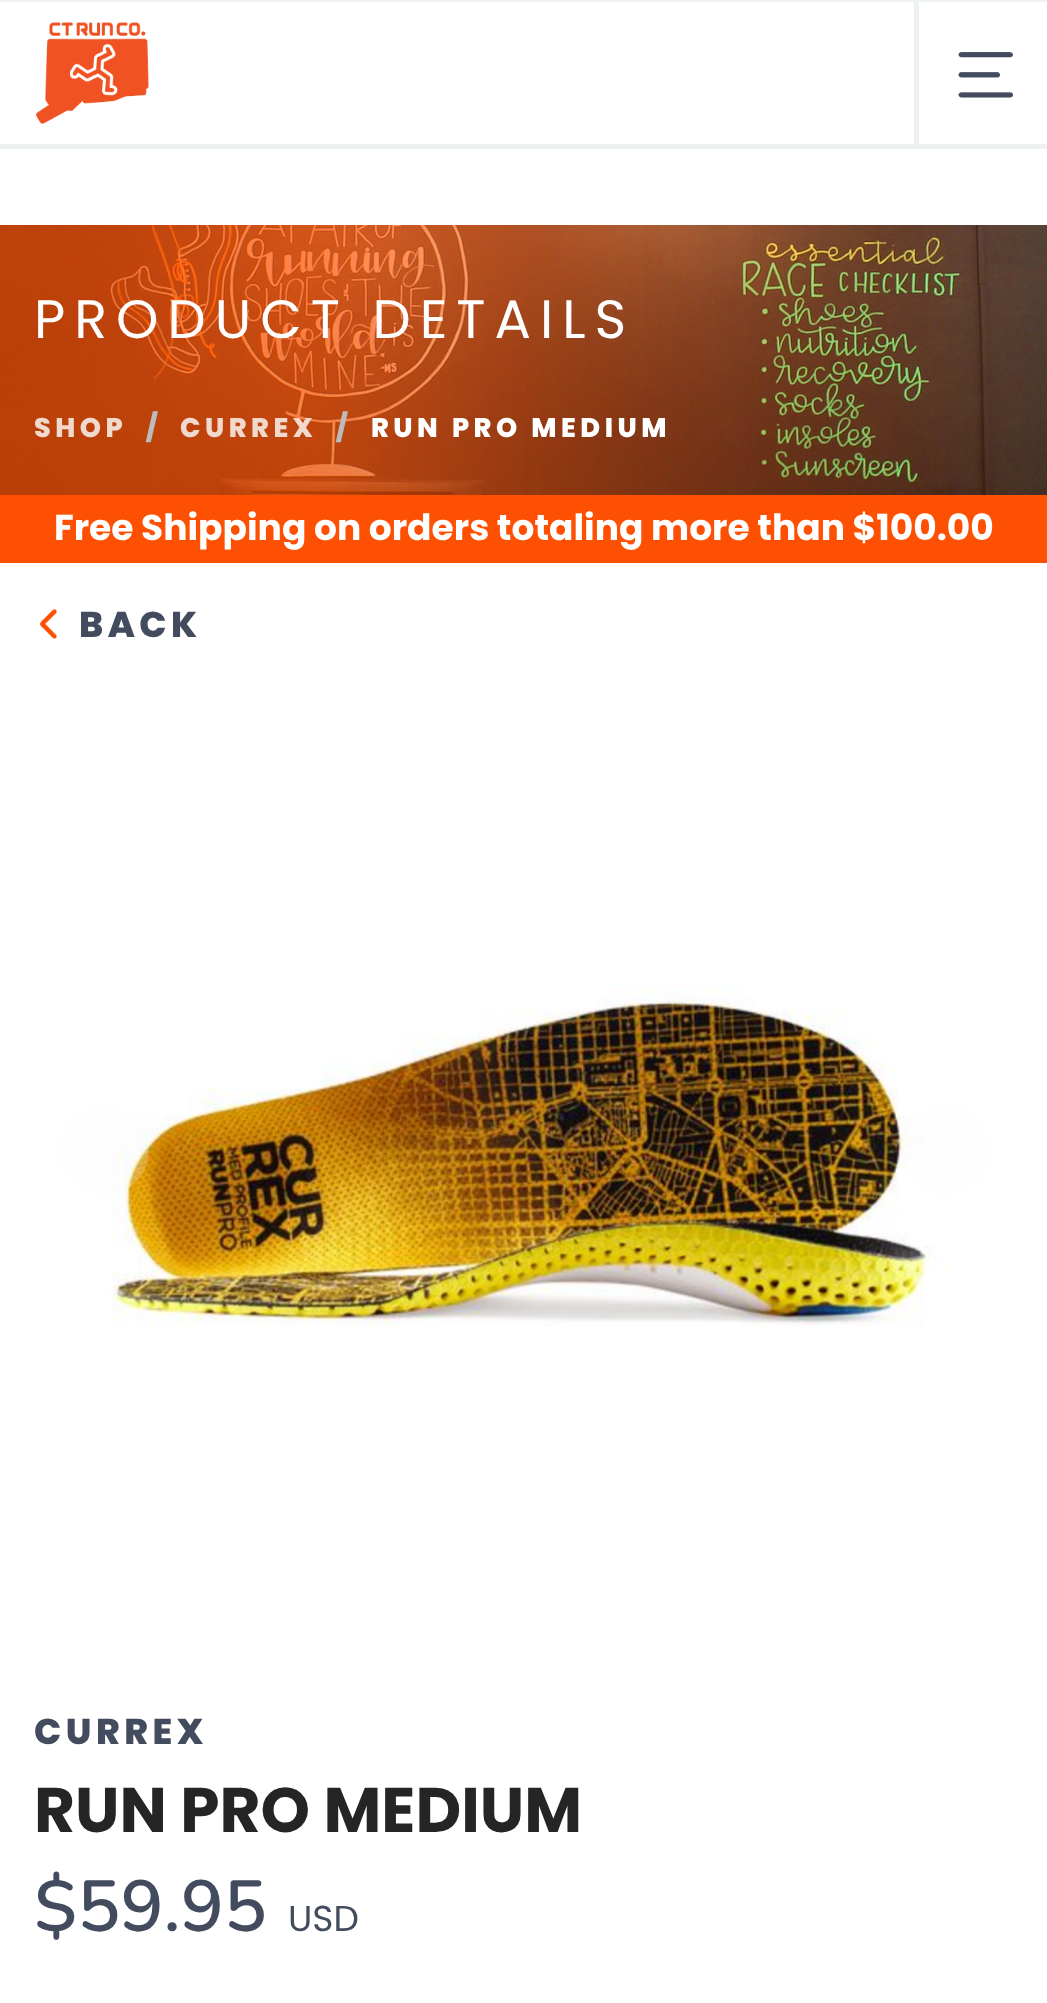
async function draw(canvas) {
  canvas.width = 1047;
  canvas.height = 2003;
  const ctx = canvas.getContext('2d');
  ctx.miterLimit = 4;
  ctx.fontKerning = 'normal';
  function label(s, x, y, font, color) {
    ctx.font = font;
    ctx.fillStyle = color;
    ctx.fillText(s, x, y);
  }
  function rect(x, y, w, h, color) {
    ctx.fillStyle = color;
    ctx.fillRect(x, y, w, h);
  }
  async function image(src, x, y, w, h) {
    const img = new Image();
    img.src = src;
    await img.decode();
    ctx.drawImage(img, x, y, w, h);
  }
  let path;

  rect(0, 0, 1047, 2003, '#fff');
  rect(0, 0, 1047, 2, '#eef1f2');
  rect(0, 144, 1047, 5, '#eef1f2');
  await image('assets/img1.png', 36, 22, 113, 102);
  rect(914, 2, 5, 142, '#eef1f2');
  await image('assets/img2.png', 958, 52, 55, 46);
  await image('assets/img3.png', 0, 225, 1047, 270);
  ctx.letterSpacing = '9px';
  label('PRODUCT DETAILS', 34, 338, '54px Poppins', '#fff');
  ctx.letterSpacing = '4.5px';
  label('SHOP', 34, 437, '800 27px Poppins', '#f1d9ce');
  label('/', 146, 437, '800 27px Poppins', '#bbb');
  label('CURREX', 180, 437, '800 27px Poppins', '#f1d9ce');
  label('/', 336, 437, '800 27px Poppins', '#bbb');
  label('RUN PRO MEDIUM', 371, 437, '800 27px Poppins', '#fff');
  await image('assets/img5.png', 40, 609, 17, 30);
  ctx.save();
  ctx.beginPath();
  ctx.roundRect(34, 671, 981, 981, 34);
  ctx.clip();
  path = new Path2D('M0 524H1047V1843H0ZM-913 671H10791C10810 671 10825 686 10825 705V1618C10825 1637 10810 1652 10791 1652H-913C-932 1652-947 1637-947 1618V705C-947 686-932 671-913 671Z');
  ctx.clip(path, 'evenodd');
  ctx.fillStyle = '#0000004d';
  ctx.filter = 'blur(56px)';
  ctx.beginPath();
  ctx.roundRect(-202, 693, 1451, 981, 34);
  ctx.fill();
  ctx.filter = 'none';
  ctx.restore();
  rect(0, 495, 1047, 68, '#fe5002');
  ctx.letterSpacing = '0px';
  label('Free Shipping on orders totaling more than $100.00', 54, 540, 'bold 36px Poppins', '#fff');
  await image('assets/img4.png', 65, 984, 919, 668);
  ctx.fillStyle = '#fafafa33';
  ctx.beginPath();
  ctx.arc(104, 1150, 45, 0, 2 * Math.PI);
  ctx.fill();
  ctx.beginPath();
  ctx.arc(945, 1150, 45, 0, 2 * Math.PI);
  ctx.fill();
  ctx.letterSpacing = '4.5px';
  label('BACK', 79, 637, '800 36px Poppins', '#434c5e');
  label('CURREX', 34, 1744, '800 36px Poppins', '#434c5e');
  ctx.letterSpacing = '0px';
  label('RUN PRO MEDIUM', 34, 1832, 'bold 63px Poppins', '#252525');
  label('$59.95', 34, 1931, '600 72px Nunito', '#434c5e');
  label('USD', 288, 1931, '36px Poppins', '#434c5e');
  ctx.fillStyle = '#fff';
  path = new Path2D('M574 984C574 983 573 981 572 981C574 981 574 983 574 984ZM574 1021C574 1023 573 1024 572 1024C574 1024 574 1022 574 1021ZM477 1024C476 1024 475 1023 475 1021C475 1022 475 1024 477 1024ZM477 981C475 981 475 983 475 984C475 983 476 981 477 981Z');
  ctx.fill(path, 'evenodd');
}

draw(document.querySelector('canvas'));
